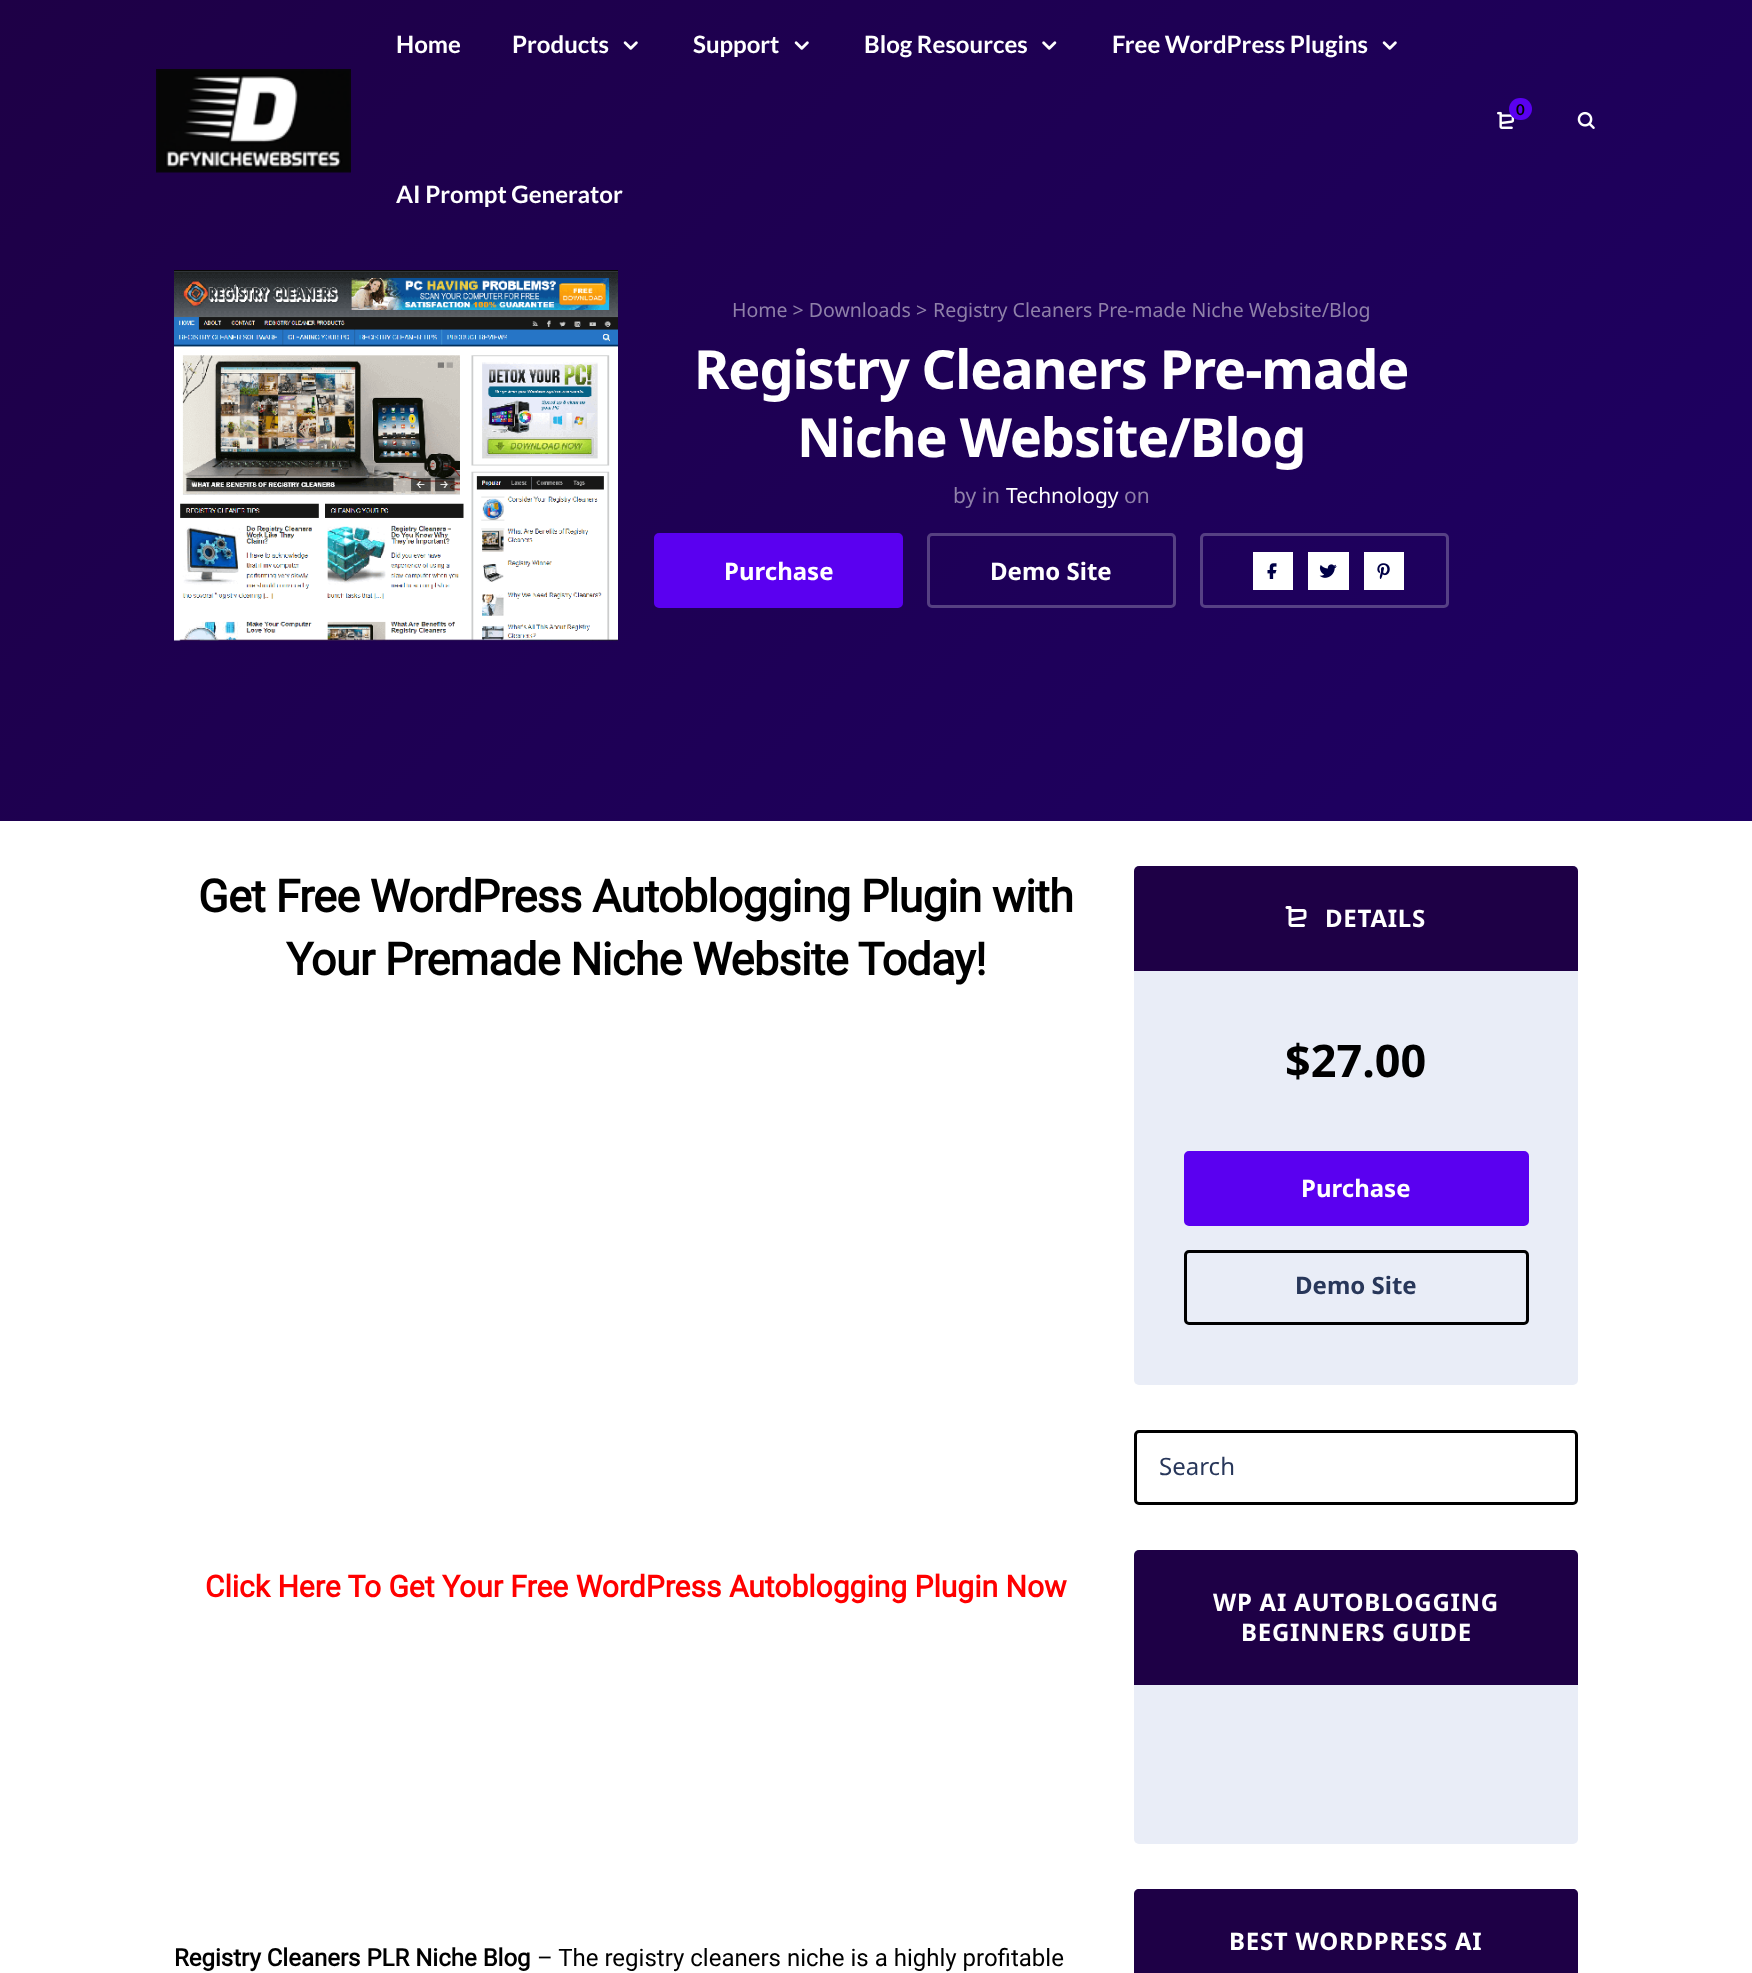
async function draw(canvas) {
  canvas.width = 1752;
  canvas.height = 1973;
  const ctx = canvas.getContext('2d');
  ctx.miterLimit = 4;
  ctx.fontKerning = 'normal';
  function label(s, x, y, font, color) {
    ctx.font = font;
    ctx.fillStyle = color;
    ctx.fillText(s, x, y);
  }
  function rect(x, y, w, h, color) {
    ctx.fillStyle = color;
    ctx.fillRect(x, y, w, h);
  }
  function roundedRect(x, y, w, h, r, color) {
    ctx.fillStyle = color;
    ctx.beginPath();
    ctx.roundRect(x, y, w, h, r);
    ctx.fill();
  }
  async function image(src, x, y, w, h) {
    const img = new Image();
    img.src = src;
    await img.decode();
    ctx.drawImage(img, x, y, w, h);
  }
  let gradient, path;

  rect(0, 0, 1752, 1973, '#fff');
  gradient = ctx.createLinearGradient(233, -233, 1519, 1053);
  gradient.addColorStop(0, '#1e0046');
  gradient.addColorStop(1, '#1e0064');
  ctx.fillStyle = gradient;
  ctx.fillRect(0, 0, 1752, 821);
  await image('assets/img1.png', 156, 69, 195, 104);
  label('Home', 396, 53, 'bold 24px Lato', '#fff');
  label('Products', 512, 53, 'bold 24px Lato', '#fff');
  await image('assets/img2.png', 623, 41, 15, 9);
  label('Support', 693, 53, 'bold 24px Lato', '#fff');
  await image('assets/img3.png', 794, 41, 15, 9);
  label('Blog Resources', 864, 53, 'bold 24px Lato', '#fff');
  await image('assets/img4.png', 1042, 41, 15, 9);
  label('Free WordPress Plugins', 1112, 53, 'bold 24px Lato', '#fff');
  await image('assets/img5.png', 1382, 41, 15, 9);
  label('AI Prompt Generator', 396, 203, 'bold 24px Lato', '#fff');
  await image('assets/img6.png', 1497, 111, 18, 18);
  roundedRect(1509, 98, 23, 22, 11, '#5a00f0');
  label('0', 1516, 115, 'bold 15px Lato', '#000');
  await image('assets/img7.png', 1577, 111, 18, 18);
  await image('assets/img8.png', 174, 270, 444, 371);
  label('Home > Downloads', 732, 317, '19.5px Noto Sans', '#8f80a9');
  label('>', 916, 317, '19.5px Noto Sans', '#8f80a9');
  label('Registry Cleaners Pre-made Niche Website/Blog', 933, 317, '19.5px Noto Sans', '#8f80a9');
  ctx.letterSpacing = '-1.1px';
  label('Registry Cleaners Pre-made', 694, 389, 'bold 54px Noto Sans', '#fff');
  label('Niche Website/Blog', 797, 457, 'bold 54px Noto Sans', '#fff');
  ctx.letterSpacing = '0px';
  label('by in', 953, 503, '21px Noto Sans', '#8f80a9');
  label('Technology', 1006, 503, '21px Noto Sans', '#fff');
  label('on', 1124, 503, '21px Noto Sans', '#8f80a9');
  ctx.fillStyle = '#5a00f0';
  ctx.beginPath();
  ctx.roundRect(655.5, 534.5, 246, 72, 3.5);
  ctx.fill();
  ctx.strokeStyle = '#5a00f0';
  ctx.lineWidth = 3;
  ctx.stroke();
  label('Purchase', 724, 580, 'bold 24px Noto Sans', '#fff');
  ctx.beginPath();
  ctx.roundRect(928.5, 534.5, 246, 72, 3.5);
  ctx.strokeStyle = '#ffffff40';
  ctx.stroke();
  label('Demo Site', 990, 580, 'bold 24px Noto Sans', '#fff');
  ctx.beginPath();
  ctx.roundRect(1201.5, 534.5, 246, 72, 3.5);
  ctx.stroke();
  rect(1253, 552, 40, 38, '#fff');
  await image('assets/img9.png', 1267, 563, 10, 16);
  rect(1308, 552, 41, 38, '#fff');
  await image('assets/img10.png', 1319, 564, 18, 14);
  rect(1364, 552, 40, 38, '#fff');
  await image('assets/img11.png', 1377, 563, 13, 16);
  ctx.letterSpacing = '-0.75px';
  label('Get Free WordPress Autoblogging Plugin with', 198, 912, 'bold 45px Roboto', '#000');
  label('Your Premade Niche Website Today!', 286, 975, 'bold 45px Roboto', '#000');
  ctx.letterSpacing = '0px';
  label('Click Here To Get Your Free WordPress Autoblogging Plugin Now', 205, 1597, 'bold 30px Roboto', '#f00');
  label('Registry Cleaners PLR Niche Blog', 174, 1966, 'bold 24px Roboto', '#000');
  label('– The registry cleaners niche is a highly profitable', 537, 1966, '24px Roboto', '#000');
  roundedRect(1134, 866, 444, 519, 5, '#e9edf7');
  ctx.fillStyle = '#1e0046';
  ctx.beginPath();
  ctx.roundRect(1134, 866, 444, 105, [5, 5, 0, 0]);
  ctx.fill();
  await image('assets/img12.png', 1285, 906, 22, 21);
  ctx.letterSpacing = '0.75px';
  label('DETAILS', 1325, 927, 'bold 24px Noto Sans', '#fff');
  ctx.letterSpacing = '0px';
  label('$27.00', 1285, 1077, 'bold 45px Noto Sans', '#000');
  ctx.fillStyle = '#5a00f0';
  ctx.beginPath();
  ctx.roundRect(1185.5, 1152.5, 342, 72, 3.5);
  ctx.fill();
  ctx.strokeStyle = '#5a00f0';
  ctx.stroke();
  label('Purchase', 1301, 1197, 'bold 24px Noto Sans', '#fff');
  ctx.beginPath();
  ctx.roundRect(1185.5, 1251.5, 342, 72, 3.5);
  ctx.strokeStyle = '#000';
  ctx.stroke();
  label('Demo Site', 1295, 1294, 'bold 24px Noto Sans', '#28375a');
  ctx.beginPath();
  ctx.roundRect(1135.5, 1431.5, 441, 72, 3.5);
  ctx.stroke();
  label('Search', 1159, 1475, '24px Noto Sans', '#28375a');
  roundedRect(1134, 1550, 444, 294, 5, '#e9edf7');
  ctx.fillStyle = '#1e0046';
  ctx.beginPath();
  ctx.roundRect(1134, 1550, 444, 135, [5, 5, 0, 0]);
  ctx.fill();
  ctx.letterSpacing = '0.75px';
  label('WP AI AUTOBLOGGING', 1213, 1611, 'bold 24px Noto Sans', '#fff');
  label('BEGINNERS GUIDE', 1241, 1641, 'bold 24px Noto Sans', '#fff');
  ctx.fillStyle = '#1e0046';
  path = new Path2D('M1139 1889H1573C1576 1889 1578 1891 1578 1894V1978H1134V1894C1134 1891 1136 1889 1139 1889Z');
  ctx.fill(path);
  label('BEST WORDPRESS AI', 1229, 1950, 'bold 24px Noto Sans', '#fff');
}

draw(document.querySelector('canvas'));
